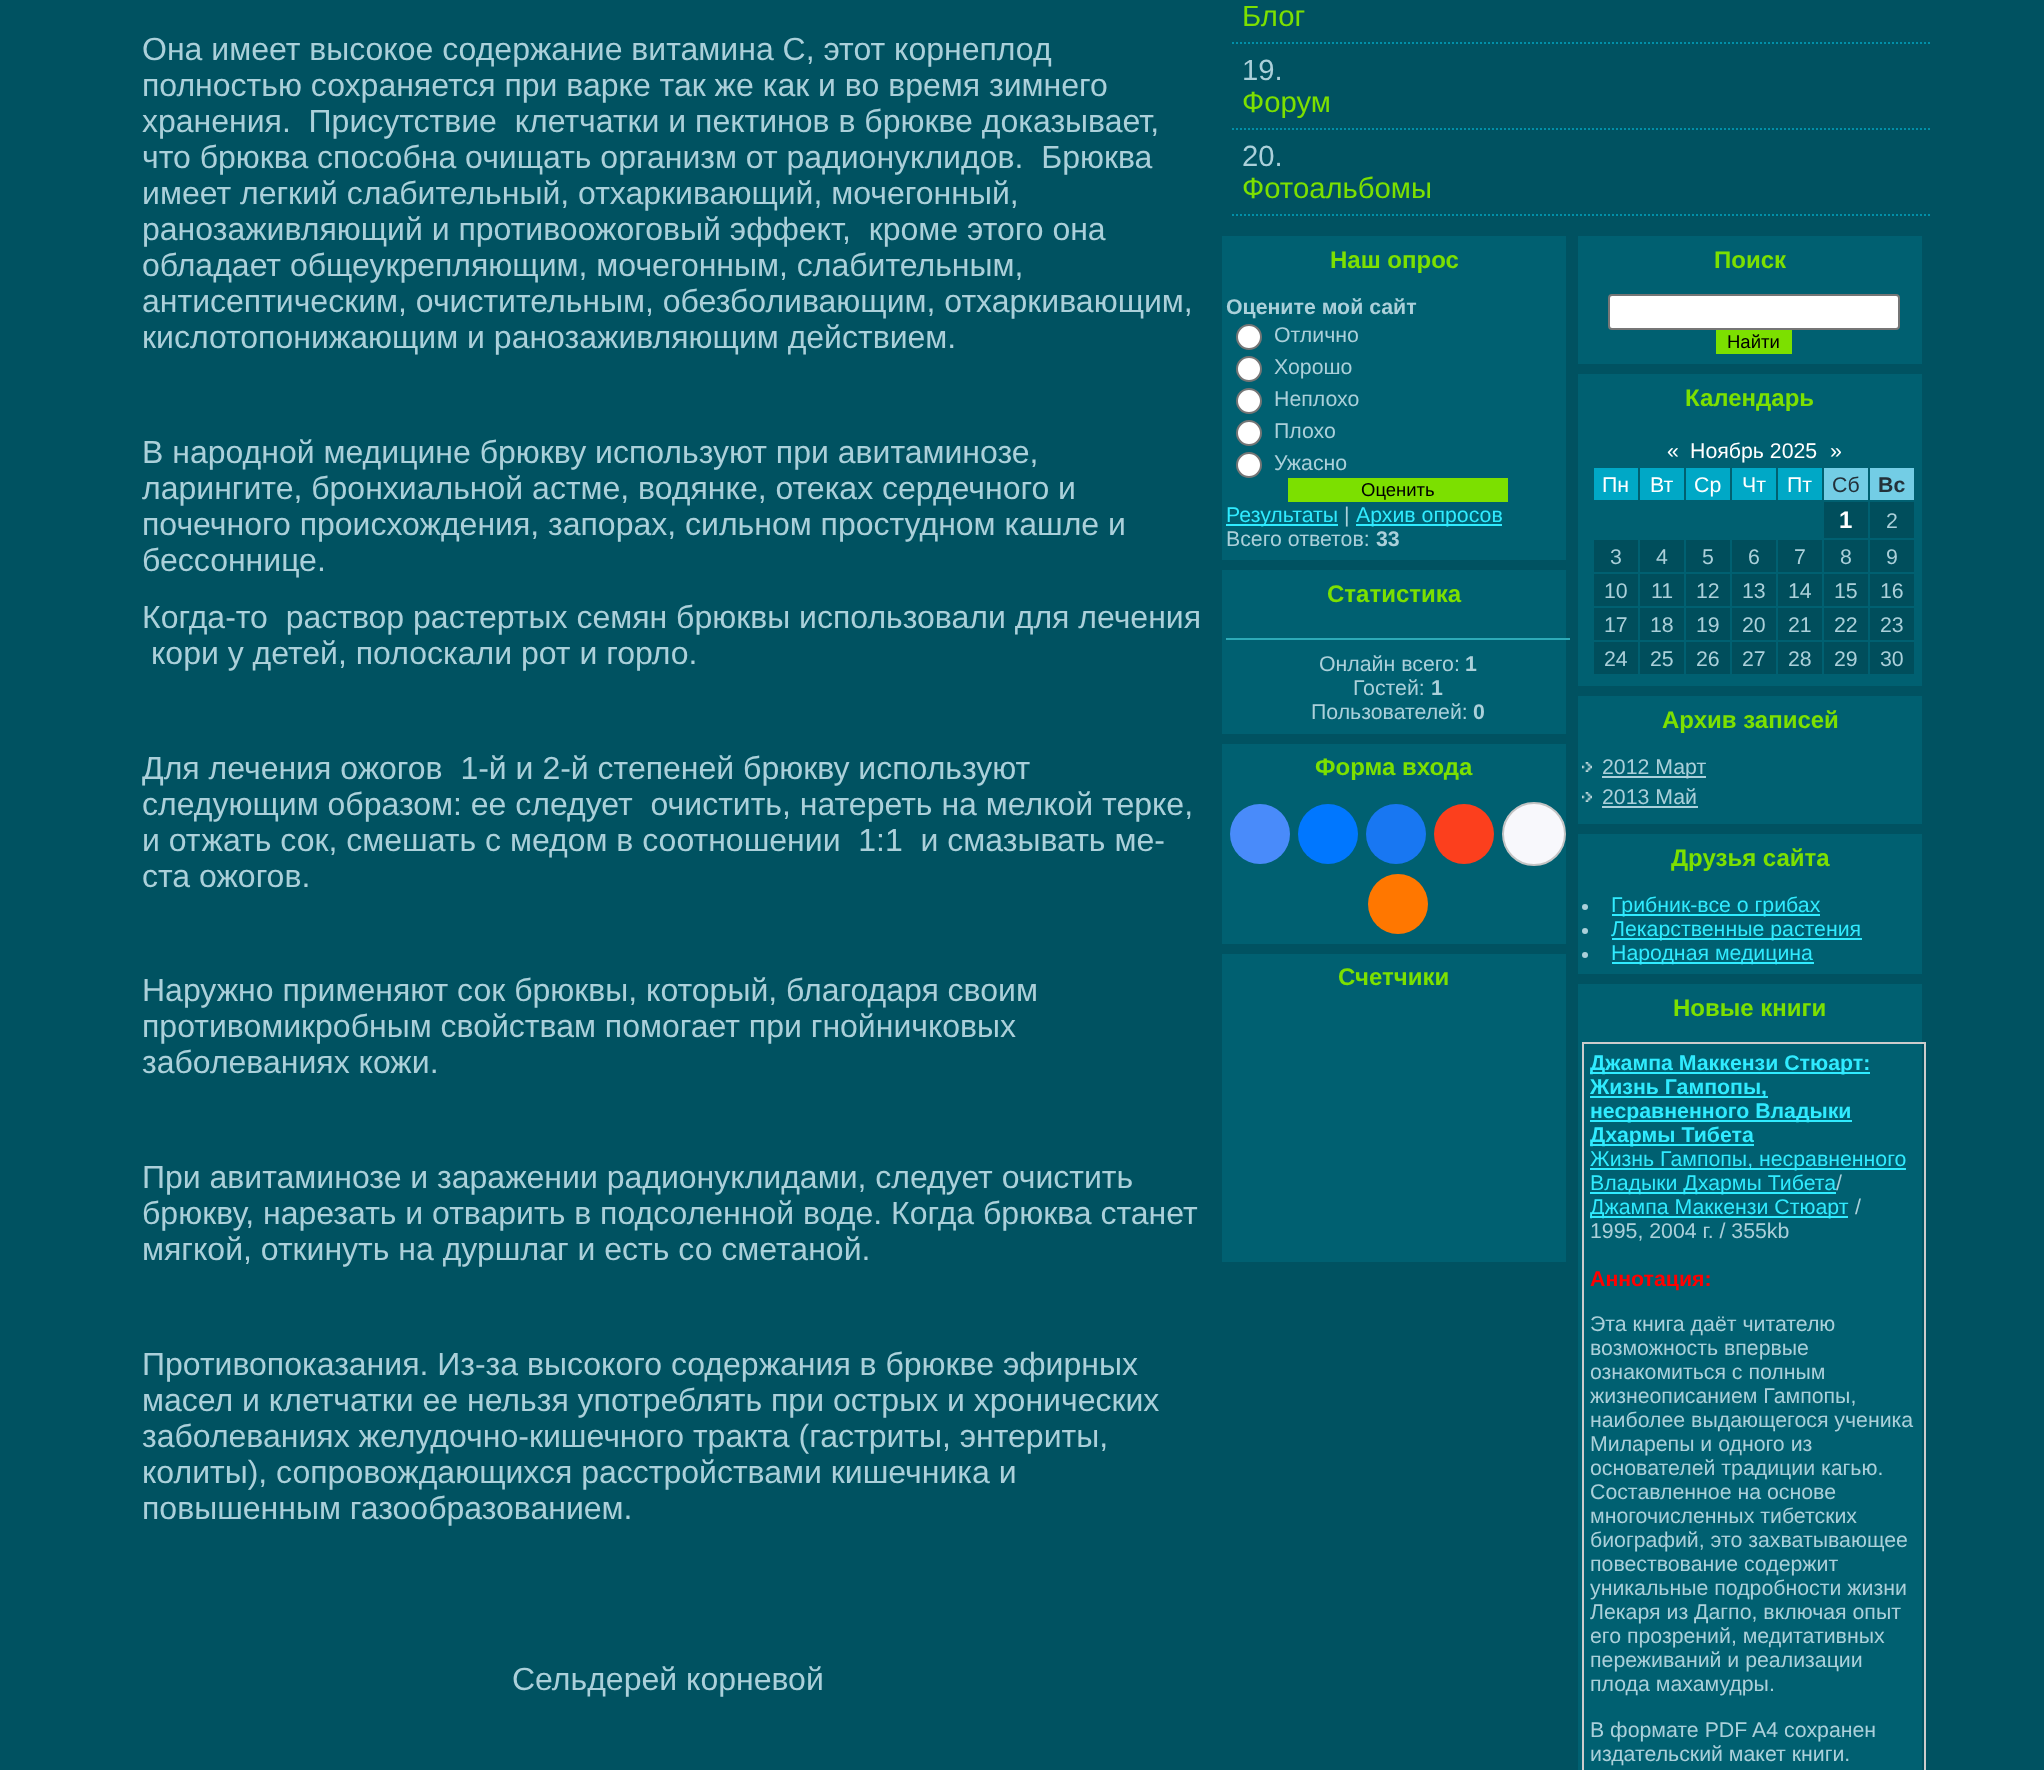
async function draw(canvas) {
  canvas.width = 2044;
  canvas.height = 1770;
  const ctx = canvas.getContext('2d');
  ctx.miterLimit = 4;
  ctx.fontKerning = 'normal';
  function label(s, x, y, font, color) {
    ctx.font = font;
    ctx.fillStyle = color;
    ctx.fillText(s, x, y);
  }
  function rect(x, y, w, h, color) {
    ctx.fillStyle = color;
    ctx.fillRect(x, y, w, h);
  }
  async function image(src, x, y, w, h) {
    const img = new Image();
    img.src = src;
    await img.decode();
    ctx.drawImage(img, x, y, w, h);
  }
  let path;

  rect(0, 0, 2044, 1770, '#005261');
  label('Она имеет высокое содержание витамина C, этот корнеплод', 142, 60, '32px Liberation Sans', '#abd0da');
  label('полностью сохраняется при варке так же как и во время зимнего', 142, 96, '32px Liberation Sans', '#abd0da');
  label('хранения.  Присутствие  клетчатки и пектинов в брюкве доказывает,', 142, 132, '32px Liberation Sans', '#abd0da');
  label('что брюква способна очищать организм от радионуклидов.  Брюква', 142, 168, '32px Liberation Sans', '#abd0da');
  label('имеет легкий слабительный, отхаркивающий, мочегонный,', 142, 204, '32px Liberation Sans', '#abd0da');
  label('ранозаживляющий и противоожоговый эффект,  кроме этого она', 142, 240, '32px Liberation Sans', '#abd0da');
  label('обладает общеукрепляющим, мочегонным, слабительным,', 142, 276, '32px Liberation Sans', '#abd0da');
  label('антисептическим, очистительным, обезболивающим, отхаркивающим,', 142, 312, '32px Liberation Sans', '#abd0da');
  label('кислотопонижающим и ранозаживляющим действием.', 142, 348, '32px Liberation Sans', '#abd0da');
  label('В народной медицине брюкву используют при авитаминозе,', 142, 463, '32px Liberation Sans', '#abd0da');
  label('ларингите, бронхиальной астме, водянке, отеках сердечного и', 142, 499, '32px Liberation Sans', '#abd0da');
  label('почечного происхождения, запорах, сильном простудном кашле и', 142, 535, '32px Liberation Sans', '#abd0da');
  label('бессоннице.', 142, 571, '32px Liberation Sans', '#abd0da');
  label('Когда-то  раствор растертых семян брюквы использовали для лечения', 142, 628, '32px Liberation Sans', '#abd0da');
  label('кори у детей, полоскали рот и горло.', 151, 664, '32px Liberation Sans', '#abd0da');
  label('Для лечения ожогов  1-й и 2-й степеней брюкву используют', 142, 779, '32px Liberation Sans', '#abd0da');
  label('следующим образом: ее следует  очистить, натереть на мелкой терке,', 142, 815, '32px Liberation Sans', '#abd0da');
  label('и отжать сок, смешать с медом в соотношении  1:1  и смазывать ме-', 142, 851, '32px Liberation Sans', '#abd0da');
  label('ста ожогов.', 142, 887, '32px Liberation Sans', '#abd0da');
  label('Наружно применяют сок брюквы, который, благодаря своим', 142, 1001, '32px Liberation Sans', '#abd0da');
  label('противомикробным свойствам помогает при гнойничковых', 142, 1037, '32px Liberation Sans', '#abd0da');
  label('заболеваниях кожи.', 142, 1073, '32px Liberation Sans', '#abd0da');
  label('При авитаминозе и заражении радионуклидами, следует очистить', 142, 1188, '32px Liberation Sans', '#abd0da');
  label('брюкву, нарезать и отварить в подсоленной воде. Когда брюква станет', 142, 1224, '32px Liberation Sans', '#abd0da');
  label('мягкой, откинуть на дуршлаг и есть со сметаной.', 142, 1260, '32px Liberation Sans', '#abd0da');
  label('Противопоказания. Из-за высокого содержания в брюкве эфирных', 142, 1375, '32px Liberation Sans', '#abd0da');
  label('масел и клетчатки ее нельзя употреблять при острых и хронических', 142, 1411, '32px Liberation Sans', '#abd0da');
  label('заболеваниях желудочно-кишечного тракта (гастриты, энтериты,', 142, 1447, '32px Liberation Sans', '#abd0da');
  label('колиты), сопровождающихся расстройствами кишечника и', 142, 1483, '32px Liberation Sans', '#abd0da');
  label('повышенным газообразованием.', 142, 1519, '32px Liberation Sans', '#abd0da');
  label('Сельдерей корневой', 512, 1690, '32px Liberation Sans', '#abd0da');
  path = new Path2D('M1232 43H1932');
  ctx.strokeStyle = '#018fa8';
  ctx.lineWidth = 2;
  ctx.setLineDash([2, 2]);
  ctx.stroke(path);
  label('Блог', 1242, 26, '29.25px Liberation Sans', '#7ce000');
  path = new Path2D('M1232 129H1932');
  ctx.stroke(path);
  label('19.', 1242, 80, '29.25px Liberation Sans', '#abd0da');
  label('Форум', 1242, 112, '29.25px Liberation Sans', '#7ce000');
  path = new Path2D('M1232 215H1932');
  ctx.stroke(path);
  label('20.', 1242, 166, '29.25px Liberation Sans', '#abd0da');
  label('Фотоальбомы', 1242, 198, '29.25px Liberation Sans', '#7ce000');
  rect(1222, 236, 344, 324, '#006071');
  label('Наш опрос', 1330, 268, 'bold 24px Liberation Sans', '#7ce000');
  label('Оцените мой сайт', 1226, 314, 'bold 21.3px Liberation Sans', '#abd0da');
  ctx.fillStyle = '#fff';
  ctx.beginPath();
  ctx.arc(1249, 337, 12, 0, 2 * Math.PI);
  ctx.fill();
  ctx.strokeStyle = '#767676';
  ctx.setLineDash([]);
  ctx.stroke();
  label('Отлично', 1274, 342, '21.3px Liberation Sans', '#abd0da');
  ctx.fillStyle = '#fff';
  ctx.beginPath();
  ctx.arc(1249, 369, 12, 0, 2 * Math.PI);
  ctx.fill();
  ctx.stroke();
  label('Хорошо', 1274, 374, '21.3px Liberation Sans', '#abd0da');
  ctx.fillStyle = '#fff';
  ctx.beginPath();
  ctx.arc(1249, 401, 12, 0, 2 * Math.PI);
  ctx.fill();
  ctx.stroke();
  label('Неплохо', 1274, 406, '21.3px Liberation Sans', '#abd0da');
  ctx.fillStyle = '#fff';
  ctx.beginPath();
  ctx.arc(1249, 433, 12, 0, 2 * Math.PI);
  ctx.fill();
  ctx.stroke();
  label('Плохо', 1274, 438, '21.3px Liberation Sans', '#abd0da');
  ctx.fillStyle = '#fff';
  ctx.beginPath();
  ctx.arc(1249, 465, 12, 0, 2 * Math.PI);
  ctx.fill();
  ctx.stroke();
  label('Ужасно', 1274, 470, '21.3px Liberation Sans', '#abd0da');
  rect(1288, 478, 220, 24, '#7ce000');
  label('Оценить', 1361, 496, '18.5px Liberation Sans', '#000');
  rect(1226, 524, 112, 2, '#30ebff');
  label('Результаты', 1226, 522, '21.3px Liberation Sans', '#30ebff');
  label('|', 1344, 522, '21.3px Liberation Sans', '#abd0da');
  rect(1356, 524, 146, 2, '#30ebff');
  label('Архив опросов', 1356, 522, '21.3px Liberation Sans', '#30ebff');
  label('Всего ответов:', 1226, 546, '21.3px Liberation Sans', '#abd0da');
  label('33', 1376, 546, 'bold 21.3px Liberation Sans', '#abd0da');
  rect(1222, 570, 344, 164, '#006071');
  label('Статистика', 1327, 602, 'bold 24px Liberation Sans', '#7ce000');
  rect(1226, 638, 344, 2, '#2daab7');
  label('Онлайн всего:', 1319, 671, '21.3px Liberation Sans', '#abd0da');
  label('1', 1465, 671, 'bold 21.3px Liberation Sans', '#abd0da');
  label('Гостей:', 1353, 695, '21.3px Liberation Sans', '#abd0da');
  label('1', 1431, 695, 'bold 21.3px Liberation Sans', '#abd0da');
  label('Пользователей:', 1311, 719, '21.3px Liberation Sans', '#abd0da');
  label('0', 1473, 719, 'bold 21.3px Liberation Sans', '#abd0da');
  rect(1222, 744, 344, 200, '#006071');
  label('Форма входа', 1315, 775, 'bold 24px Liberation Sans', '#7ce000');
  ctx.fillStyle = '#498bfa';
  ctx.beginPath();
  ctx.arc(1260, 834, 30, 0, 2 * Math.PI);
  ctx.fill();
  ctx.fillStyle = '#07f';
  ctx.beginPath();
  ctx.arc(1328, 834, 30, 0, 2 * Math.PI);
  ctx.fill();
  ctx.fillStyle = '#1877f2';
  ctx.beginPath();
  ctx.arc(1396, 834, 30, 0, 2 * Math.PI);
  ctx.fill();
  ctx.fillStyle = '#fc3f1d';
  ctx.beginPath();
  ctx.arc(1464, 834, 30, 0, 2 * Math.PI);
  ctx.fill();
  ctx.fillStyle = '#f8f8fc';
  ctx.beginPath();
  ctx.arc(1534, 834, 31, 0, 2 * Math.PI);
  ctx.fill();
  ctx.strokeStyle = '#c4c4c4';
  ctx.stroke();
  ctx.fillStyle = '#f70';
  ctx.beginPath();
  ctx.arc(1398, 904, 30, 0, 2 * Math.PI);
  ctx.fill();
  rect(1222, 954, 344, 308, '#006071');
  label('Счетчики', 1338, 985, 'bold 24px Liberation Sans', '#7ce000');
  rect(1578, 236, 344, 128, '#006071');
  label('Поиск', 1714, 268, 'bold 24px Liberation Sans', '#7ce000');
  ctx.fillStyle = '#fff';
  ctx.beginPath();
  ctx.roundRect(1609, 295, 290, 34, 3);
  ctx.fill();
  ctx.strokeStyle = '#767676';
  ctx.stroke();
  rect(1716, 330, 76, 24, '#7ce000');
  label('Найти', 1727, 348, '18.5px Liberation Sans', '#000');
  rect(1578, 374, 344, 312, '#006071');
  label('Календарь', 1685, 406, 'bold 24px Liberation Sans', '#7ce000');
  label('«', 1667, 458, '21.3px Liberation Sans', '#fff');
  label('Ноябрь 2025', 1690, 458, '21.3px Liberation Sans', '#fff');
  label('»', 1830, 458, '21.3px Liberation Sans', '#fff');
  rect(1594, 468, 44, 32, '#00a8c6');
  label('Пн', 1602, 492, '21.3px Liberation Sans', '#fff');
  rect(1640, 468, 44, 32, '#00a8c6');
  label('Вт', 1650, 492, '21.3px Liberation Sans', '#fff');
  rect(1686, 468, 44, 32, '#00a8c6');
  label('Ср', 1694, 492, '21.3px Liberation Sans', '#fff');
  rect(1732, 468, 44, 32, '#00a8c6');
  label('Чт', 1742, 492, '21.3px Liberation Sans', '#fff');
  rect(1778, 468, 44, 32, '#00a8c6');
  label('Пт', 1787, 492, '21.3px Liberation Sans', '#fff');
  rect(1824, 468, 44, 32, '#73cde5');
  label('Сб', 1832, 492, '21.3px Liberation Sans', '#233039');
  rect(1870, 468, 44, 32, '#73cde5');
  label('Вс', 1878, 492, 'bold 21.3px Liberation Sans', '#233039');
  rect(1824, 502, 44, 36, '#004e5c');
  label('1', 1839, 528, 'bold 24px Liberation Sans', '#fff');
  rect(1870, 502, 44, 36, '#004e5c');
  label('2', 1886, 528, '21.3px Liberation Sans', '#abd0da');
  rect(1594, 540, 44, 32, '#004e5c');
  label('3', 1610, 564, '21.3px Liberation Sans', '#abd0da');
  rect(1640, 540, 44, 32, '#004e5c');
  label('4', 1656, 564, '21.3px Liberation Sans', '#abd0da');
  rect(1686, 540, 44, 32, '#004e5c');
  label('5', 1702, 564, '21.3px Liberation Sans', '#abd0da');
  rect(1732, 540, 44, 32, '#004e5c');
  label('6', 1748, 564, '21.3px Liberation Sans', '#abd0da');
  rect(1778, 540, 44, 32, '#004e5c');
  label('7', 1794, 564, '21.3px Liberation Sans', '#abd0da');
  rect(1824, 540, 44, 32, '#004e5c');
  label('8', 1840, 564, '21.3px Liberation Sans', '#abd0da');
  rect(1870, 540, 44, 32, '#004e5c');
  label('9', 1886, 564, '21.3px Liberation Sans', '#abd0da');
  rect(1594, 574, 44, 32, '#004e5c');
  label('10', 1604, 598, '21.3px Liberation Sans', '#abd0da');
  rect(1640, 574, 44, 32, '#004e5c');
  label('11', 1651, 598, '21.3px Liberation Sans', '#abd0da');
  rect(1686, 574, 44, 32, '#004e5c');
  label('12', 1696, 598, '21.3px Liberation Sans', '#abd0da');
  rect(1732, 574, 44, 32, '#004e5c');
  label('13', 1742, 598, '21.3px Liberation Sans', '#abd0da');
  rect(1778, 574, 44, 32, '#004e5c');
  label('14', 1788, 598, '21.3px Liberation Sans', '#abd0da');
  rect(1824, 574, 44, 32, '#004e5c');
  label('15', 1834, 598, '21.3px Liberation Sans', '#abd0da');
  rect(1870, 574, 44, 32, '#004e5c');
  label('16', 1880, 598, '21.3px Liberation Sans', '#abd0da');
  rect(1594, 608, 44, 32, '#004e5c');
  label('17', 1604, 632, '21.3px Liberation Sans', '#abd0da');
  rect(1640, 608, 44, 32, '#004e5c');
  label('18', 1650, 632, '21.3px Liberation Sans', '#abd0da');
  rect(1686, 608, 44, 32, '#004e5c');
  label('19', 1696, 632, '21.3px Liberation Sans', '#abd0da');
  rect(1732, 608, 44, 32, '#004e5c');
  label('20', 1742, 632, '21.3px Liberation Sans', '#abd0da');
  rect(1778, 608, 44, 32, '#004e5c');
  label('21', 1788, 632, '21.3px Liberation Sans', '#abd0da');
  rect(1824, 608, 44, 32, '#004e5c');
  label('22', 1834, 632, '21.3px Liberation Sans', '#abd0da');
  rect(1870, 608, 44, 32, '#004e5c');
  label('23', 1880, 632, '21.3px Liberation Sans', '#abd0da');
  rect(1594, 642, 44, 32, '#004e5c');
  label('24', 1604, 666, '21.3px Liberation Sans', '#abd0da');
  rect(1640, 642, 44, 32, '#004e5c');
  label('25', 1650, 666, '21.3px Liberation Sans', '#abd0da');
  rect(1686, 642, 44, 32, '#004e5c');
  label('26', 1696, 666, '21.3px Liberation Sans', '#abd0da');
  rect(1732, 642, 44, 32, '#004e5c');
  label('27', 1742, 666, '21.3px Liberation Sans', '#abd0da');
  rect(1778, 642, 44, 32, '#004e5c');
  label('28', 1788, 666, '21.3px Liberation Sans', '#abd0da');
  rect(1824, 642, 44, 32, '#004e5c');
  label('29', 1834, 666, '21.3px Liberation Sans', '#abd0da');
  rect(1870, 642, 44, 32, '#004e5c');
  label('30', 1880, 666, '21.3px Liberation Sans', '#abd0da');
  rect(1578, 696, 344, 128, '#006071');
  label('Архив записей', 1662, 728, 'bold 24px Liberation Sans', '#7ce000');
  await image('assets/img1.png', 1582, 762, 10, 10);
  rect(1602, 776, 104, 2, '#abd0da');
  label('2012 Март', 1602, 774, '21.3px Liberation Sans', '#abd0da');
  await image('assets/img1.png', 1582, 792, 10, 10);
  label('2013 Май', 1602, 804, '21.3px Liberation Sans', '#abd0da');
  rect(1602, 806, 96, 2, '#abd0da');
  rect(1578, 834, 344, 140, '#006071');
  label('Друзья сайта', 1671, 866, 'bold 24px Liberation Sans', '#7ce000');
  ctx.fillStyle = '#abd0da';
  ctx.beginPath();
  ctx.arc(1585, 907, 3, 0, 2 * Math.PI);
  ctx.fill();
  rect(1612, 914, 208, 2, '#30ebff');
  label('Грибник-все о грибах', 1611, 912, '21.3px Liberation Sans', '#30ebff');
  ctx.fillStyle = '#abd0da';
  ctx.beginPath();
  ctx.arc(1585, 931, 3, 0, 2 * Math.PI);
  ctx.fill();
  rect(1612, 938, 250, 2, '#30ebff');
  label('Лекарственные растения', 1611, 936, '21.3px Liberation Sans', '#30ebff');
  ctx.fillStyle = '#abd0da';
  ctx.beginPath();
  ctx.arc(1585, 955, 3, 0, 2 * Math.PI);
  ctx.fill();
  rect(1612, 962, 202, 2, '#30ebff');
  label('Народная медицина', 1611, 960, '21.3px Liberation Sans', '#30ebff');
  rect(1578, 984, 344, 786, '#006071');
  label('Новые книги', 1673, 1016, 'bold 24px Liberation Sans', '#7ce000');
  ctx.strokeStyle = '#ccc';
  ctx.strokeRect(1583, 1043, 342, 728);
  rect(1590, 1072, 280, 2, '#30ebff');
  label('Джампа Маккензи Стюарт:', 1590, 1070, 'bold 21.3px Liberation Sans', '#30ebff');
  rect(1590, 1096, 178, 2, '#30ebff');
  label('Жизнь Гампопы,', 1590, 1094, 'bold 21.3px Liberation Sans', '#30ebff');
  rect(1590, 1120, 262, 2, '#30ebff');
  label('несравненного Владыки', 1590, 1118, 'bold 21.3px Liberation Sans', '#30ebff');
  rect(1590, 1144, 164, 2, '#30ebff');
  label('Дхармы Тибета', 1590, 1142, 'bold 21.3px Liberation Sans', '#30ebff');
  rect(1590, 1168, 316, 2, '#30ebff');
  label('Жизнь Гампопы, несравненного', 1590, 1166, '21.3px Liberation Sans', '#30ebff');
  rect(1590, 1192, 246, 2, '#30ebff');
  label('Владыки Дхармы Тибета', 1590, 1190, '21.3px Liberation Sans', '#30ebff');
  label('/', 1836, 1190, '21.3px Liberation Sans', '#abd0da');
  rect(1590, 1216, 258, 2, '#30ebff');
  label('Джампа Маккензи Стюарт', 1590, 1214, '21.3px Liberation Sans', '#30ebff');
  label('/', 1855, 1214, '21.3px Liberation Sans', '#abd0da');
  label('1995, 2004 г. / 355kb', 1590, 1238, '21.3px Liberation Sans', '#abd0da');
  label('Аннотация:', 1590, 1286, 'bold 21.3px Liberation Sans', '#f00');
  label('Эта книга даёт читателю', 1590, 1331, '21.3px Liberation Sans', '#abd0da');
  label('возможность впервые', 1590, 1355, '21.3px Liberation Sans', '#abd0da');
  label('ознакомиться с полным', 1590, 1379, '21.3px Liberation Sans', '#abd0da');
  label('жизнеописанием Гампопы,', 1590, 1403, '21.3px Liberation Sans', '#abd0da');
  label('наиболее выдающегося ученика', 1590, 1427, '21.3px Liberation Sans', '#abd0da');
  label('Миларепы и одного из', 1590, 1451, '21.3px Liberation Sans', '#abd0da');
  label('основателей традиции кагью.', 1590, 1475, '21.3px Liberation Sans', '#abd0da');
  label('Составленное на основе', 1590, 1499, '21.3px Liberation Sans', '#abd0da');
  label('многочисленных тибетских', 1590, 1523, '21.3px Liberation Sans', '#abd0da');
  label('биографий, это захватывающее', 1590, 1547, '21.3px Liberation Sans', '#abd0da');
  label('повествование содержит', 1590, 1571, '21.3px Liberation Sans', '#abd0da');
  label('уникальные подробности жизни', 1590, 1595, '21.3px Liberation Sans', '#abd0da');
  label('Лекаря из Дагпо, включая опыт', 1590, 1619, '21.3px Liberation Sans', '#abd0da');
  label('его прозрений, медитативных', 1590, 1643, '21.3px Liberation Sans', '#abd0da');
  label('переживаний и реализации', 1590, 1667, '21.3px Liberation Sans', '#abd0da');
  label('плода махамудры.', 1590, 1691, '21.3px Liberation Sans', '#abd0da');
  label('В формате PDF A4 сохранен', 1590, 1737, '21.3px Liberation Sans', '#abd0da');
  label('издательский макет книги.', 1590, 1761, '21.3px Liberation Sans', '#abd0da');
}

draw(document.querySelector('canvas'));
